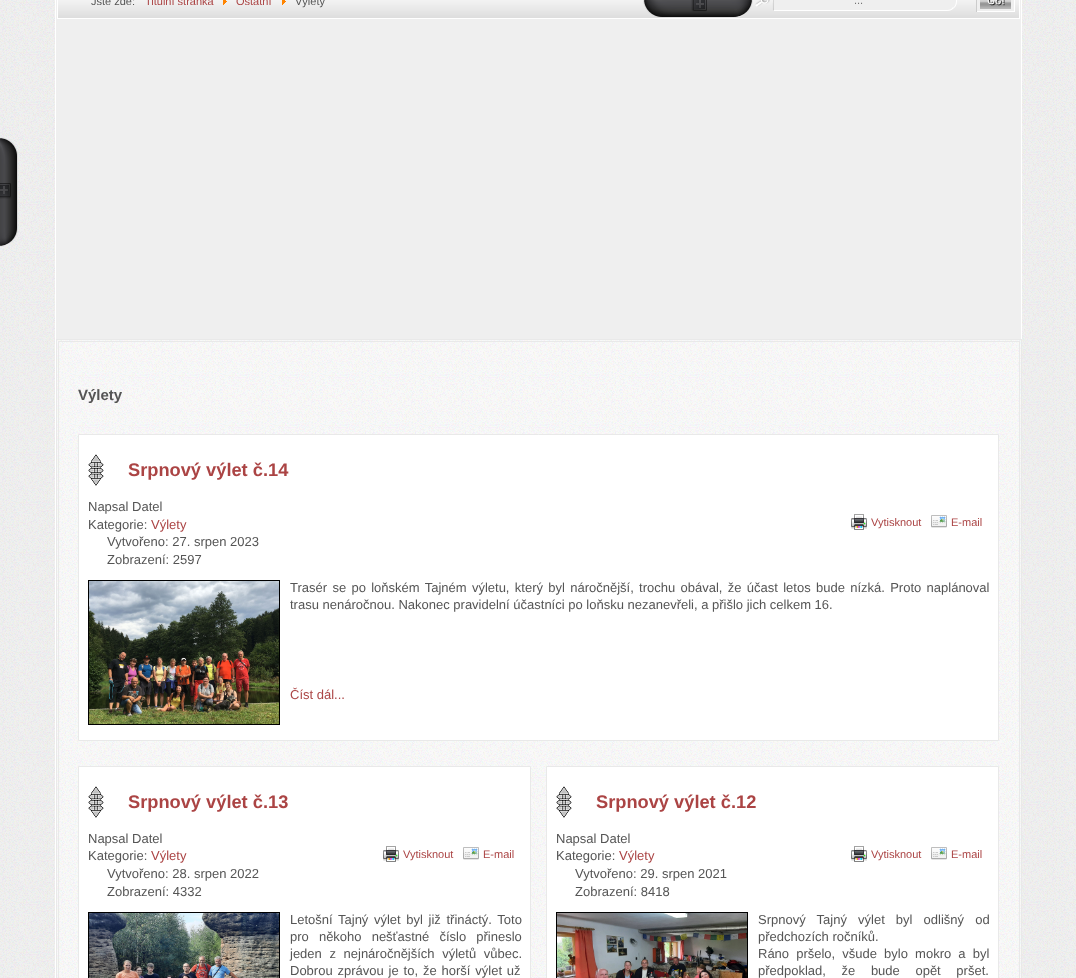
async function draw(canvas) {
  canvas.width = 1076;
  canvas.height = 978;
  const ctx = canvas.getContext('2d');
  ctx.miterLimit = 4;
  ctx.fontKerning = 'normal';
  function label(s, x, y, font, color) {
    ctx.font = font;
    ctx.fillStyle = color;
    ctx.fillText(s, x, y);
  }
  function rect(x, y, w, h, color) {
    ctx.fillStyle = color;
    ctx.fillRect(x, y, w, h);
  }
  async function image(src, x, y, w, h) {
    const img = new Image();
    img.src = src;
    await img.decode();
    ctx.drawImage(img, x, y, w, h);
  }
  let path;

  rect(0, 0, 1076, 978, '#efefef');
  await image('assets/img1.png', 0, 0, 1076, 978);
  await image('assets/img2.png', 0, 137, 18, 110);
  rect(56, 0, 965, 339, '#efefef');
  ctx.strokeStyle = '#fff';
  ctx.strokeRect(55.5, -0.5, 966, 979);
  rect(58, 0, 961, 18, '#f9f9f9');
  await image('assets/img3.png', 58, 0, 961, 18);
  ctx.strokeRect(57.5, -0.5, 962, 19);
  label('Jste zde:', 91, 5, '11px Liberation Sans', '#555');
  label('Titulní stránka', 145, 5, '11px Liberation Sans', '#ab4444');
  await image('assets/img4.png', 223, 0, 4, 5);
  label('Ostatní', 236, 5, '11px Liberation Sans', '#ab4444');
  await image('assets/img4.png', 282, 0, 4, 5);
  label('Výlety', 295, 5, '11px Liberation Sans', '#555');
  await image('assets/img5.png', 755, 0, 15, 7);
  ctx.fillStyle = '#efefef';
  path = new Path2D('M783-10H957V1C957 6.5 952.5 11 947 11H773V0C773-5.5 777.5-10 783-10Z');
  ctx.fill(path);
  ctx.fillStyle = '#fff';
  path = new Path2D('M957-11L956-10V1C956 3.5 955 6 953.5 7.5L954 8C956 6.5 957 4 957 1Z');
  ctx.fill(path);
  path = new Path2D('M947 11C950 11 952 10 954 8L953 7C952 9 950 10 947 10H774L773 11Z');
  ctx.fill(path);
  ctx.fillStyle = '#ccc';
  path = new Path2D('M773 11C773 5.5 772-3.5 776-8L776.5-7.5C772.5-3 774 4.5 774 10Z');
  ctx.fill(path);
  label('...', 854, 4, '11px Liberation Sans', '#757575');
  rect(977, 0, 37, 11, '#efefef');
  rect(1014, 0, 1, 12, '#fff');
  rect(976, 11, 39, 1, '#fff');
  rect(976, 0, 1, 12, '#ccc');
  await image('assets/img6.png', 980, 0, 31, 9);
  await image('assets/img7.png', 643, 0, 110, 18);
  rect(57, 340, 964, 638, '#f9f9f9');
  await image('assets/img8.png', 57, 340, 964, 638);
  ctx.strokeStyle = '#e9e9e9';
  ctx.strokeRect(56.5, 339.5, 965, 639);
  ctx.strokeRect(58.5, 341.5, 961, 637);
  label('Výlety', 78, 400, 'bold 15px Liberation Sans', '#555');
  ctx.fillStyle = '#fff';
  ctx.beginPath();
  ctx.rect(78.5, 434.5, 920, 306);
  ctx.fill();
  ctx.stroke();
  await image('assets/img9.png', 88, 454, 16, 32);
  label('Srpnový výlet č.14', 128, 476, 'bold 18.25px Liberation Sans', '#ab4444');
  label('Napsal Datel', 88, 511, '13px Liberation Sans', '#555');
  label('Kategorie:', 88, 529, '13px Liberation Sans', '#555');
  label('Výlety', 151, 529, '13px Liberation Sans', '#ab4444');
  label('Vytvořeno: 27. srpen 2023', 107, 546, '13px Liberation Sans', '#555');
  label('Zobrazení: 2597', 107, 564, '13px Liberation Sans', '#555');
  await image('assets/img10.png', 851, 514, 16, 16);
  label('Vytisknout', 871, 526, '11px Liberation Sans', '#ab4444');
  await image('assets/img11.png', 931, 515, 16, 13);
  label('E-mail', 951, 526, '11px Liberation Sans', '#ab4444');
  ctx.strokeStyle = '#000';
  ctx.strokeRect(88.5, 580.5, 191, 144);
  await image('assets/img12.png', 89, 581, 190, 143);
  ctx.wordSpacing = '1.7px';
  label('Trasér se po loňském Tajném výletu, který byl náročnější, trochu obával, že účast letos bude nízká. Proto naplánoval', 290, 592, '13px Liberation Sans', '#555');
  ctx.wordSpacing = '0px';
  label('trasu nenáročnou. Nakonec pravidelní účastníci po loňsku nezanevřeli, a přišlo jich celkem 16.', 290, 609, '13px Liberation Sans', '#555');
  label('Číst dál...', 290, 699, '13px Liberation Sans', '#ab4444');
  ctx.fillStyle = '#fff';
  ctx.beginPath();
  ctx.rect(78.5, 766.5, 452, 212);
  ctx.fill();
  ctx.strokeStyle = '#e9e9e9';
  ctx.stroke();
  await image('assets/img9.png', 88, 786, 16, 32);
  label('Srpnový výlet č.13', 128, 808, 'bold 18.25px Liberation Sans', '#ab4444');
  label('Napsal Datel', 88, 843, '13px Liberation Sans', '#555');
  label('Kategorie:', 88, 860, '13px Liberation Sans', '#555');
  label('Výlety', 151, 860, '13px Liberation Sans', '#ab4444');
  label('Vytvořeno: 28. srpen 2022', 107, 878, '13px Liberation Sans', '#555');
  label('Zobrazení: 4332', 107, 896, '13px Liberation Sans', '#555');
  await image('assets/img10.png', 383, 846, 16, 16);
  label('Vytisknout', 403, 858, '11px Liberation Sans', '#ab4444');
  await image('assets/img11.png', 463, 847, 16, 13);
  label('E-mail', 483, 858, '11px Liberation Sans', '#ab4444');
  ctx.strokeStyle = '#000';
  ctx.strokeRect(88.5, 912.5, 191, 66);
  await image('assets/img13.png', 89, 913, 190, 65);
  ctx.wordSpacing = '2px';
  label('Letošní Tajný výlet byl již třináctý. Toto', 290, 924, '13px Liberation Sans', '#555');
  ctx.wordSpacing = '6.5px';
  label('pro někoho nešťastné číslo přineslo', 290, 941, '13px Liberation Sans', '#555');
  ctx.wordSpacing = '4px';
  label('jeden z nejnáročnějších výletů vůbec.', 290, 958, '13px Liberation Sans', '#555');
  ctx.wordSpacing = '1.25px';
  label('Dobrou zprávou je to, že horší výlet už', 290, 975, '13px Liberation Sans', '#555');
  ctx.fillStyle = '#fff';
  ctx.beginPath();
  ctx.rect(546.5, 766.5, 452, 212);
  ctx.fill();
  ctx.strokeStyle = '#e9e9e9';
  ctx.stroke();
  await image('assets/img9.png', 556, 786, 16, 32);
  ctx.wordSpacing = '0px';
  label('Srpnový výlet č.12', 596, 808, 'bold 18.25px Liberation Sans', '#ab4444');
  label('Napsal Datel', 556, 843, '13px Liberation Sans', '#555');
  label('Kategorie:', 556, 860, '13px Liberation Sans', '#555');
  label('Výlety', 619, 860, '13px Liberation Sans', '#ab4444');
  label('Vytvořeno: 29. srpen 2021', 575, 878, '13px Liberation Sans', '#555');
  label('Zobrazení: 8418', 575, 896, '13px Liberation Sans', '#555');
  await image('assets/img10.png', 851, 846, 16, 16);
  label('Vytisknout', 871, 858, '11px Liberation Sans', '#ab4444');
  await image('assets/img11.png', 931, 847, 16, 13);
  label('E-mail', 951, 858, '11px Liberation Sans', '#ab4444');
  ctx.strokeStyle = '#000';
  ctx.strokeRect(556.5, 912.5, 191, 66);
  await image('assets/img14.png', 557, 913, 190, 65);
  ctx.wordSpacing = '7.5px';
  label('Srpnový Tajný výlet byl odlišný od', 758, 924, '13px Liberation Sans', '#555');
  ctx.wordSpacing = '0px';
  label('předchozích ročníků.', 758, 941, '13px Liberation Sans', '#555');
  ctx.wordSpacing = '3.5px';
  label('Ráno pršelo, všude bylo mokro a byl', 758, 958, '13px Liberation Sans', '#555');
  ctx.wordSpacing = '12px';
  label('předpoklad, že bude opět pršet.', 758, 975, '13px Liberation Sans', '#555');
}

draw(document.querySelector('canvas'));
